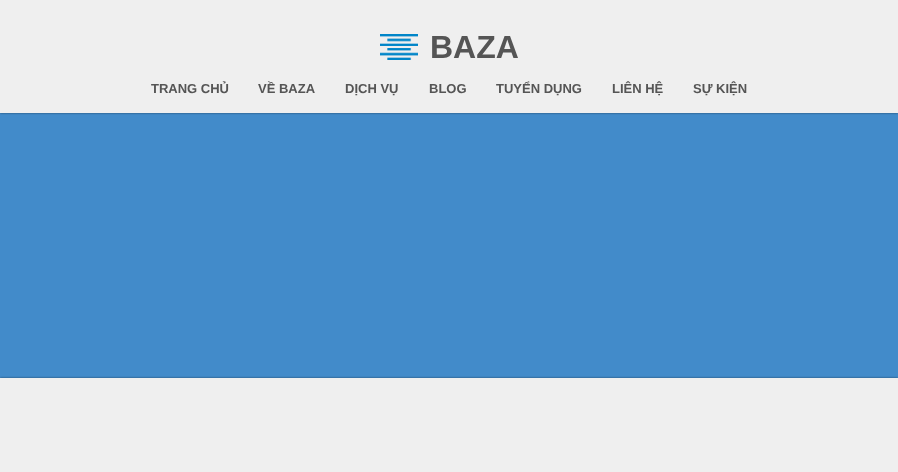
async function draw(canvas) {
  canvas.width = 898;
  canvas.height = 472;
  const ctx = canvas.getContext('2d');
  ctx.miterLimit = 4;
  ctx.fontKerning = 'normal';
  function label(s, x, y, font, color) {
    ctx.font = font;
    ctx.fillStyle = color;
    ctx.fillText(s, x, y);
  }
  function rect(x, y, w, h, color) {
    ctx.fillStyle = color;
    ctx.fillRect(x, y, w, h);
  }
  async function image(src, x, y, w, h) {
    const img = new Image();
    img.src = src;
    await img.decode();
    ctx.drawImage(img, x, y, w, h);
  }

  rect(0, 0, 898, 472, '#efefef');
  rect(0, 113, 898, 265, '#428bca');
  ctx.save();
  ctx.beginPath();
  ctx.rect(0, 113, 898, 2);
  ctx.clip();
  ctx.fillStyle = '#00000080';
  ctx.filter = 'blur(1px)';
  ctx.beginPath();
  ctx.rect(0, 0, 898, 113);
  ctx.fill();
  ctx.filter = 'none';
  ctx.restore();
  await image('assets/img1.png', 380, 34, 38, 26);
  label('BAZA', 430, 58, 'bold 32px Liberation Sans', '#555');
  label('TRANG CHỦ', 151, 93, 'bold 13px Liberation Sans', '#555');
  label('VỀ BAZA', 258, 93, 'bold 13px Liberation Sans', '#555');
  label('DỊCH VỤ', 345, 93, 'bold 13px Liberation Sans', '#555');
  label('BLOG', 429, 93, 'bold 13px Liberation Sans', '#555');
  label('TUYỂN DỤNG', 496, 93, 'bold 13px Liberation Sans', '#555');
  label('LIÊN HỆ', 612, 93, 'bold 13px Liberation Sans', '#555');
  label('SỰ KIỆN', 693, 93, 'bold 13px Liberation Sans', '#555');
  ctx.save();
  ctx.beginPath();
  ctx.rect(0, 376, 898, 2);
  ctx.clip();
  ctx.fillStyle = '#00000080';
  ctx.filter = 'blur(1px)';
  ctx.beginPath();
  ctx.rect(0, 378, 898, 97);
  ctx.fill();
  ctx.filter = 'none';
  ctx.restore();
}

draw(document.querySelector('canvas'));
